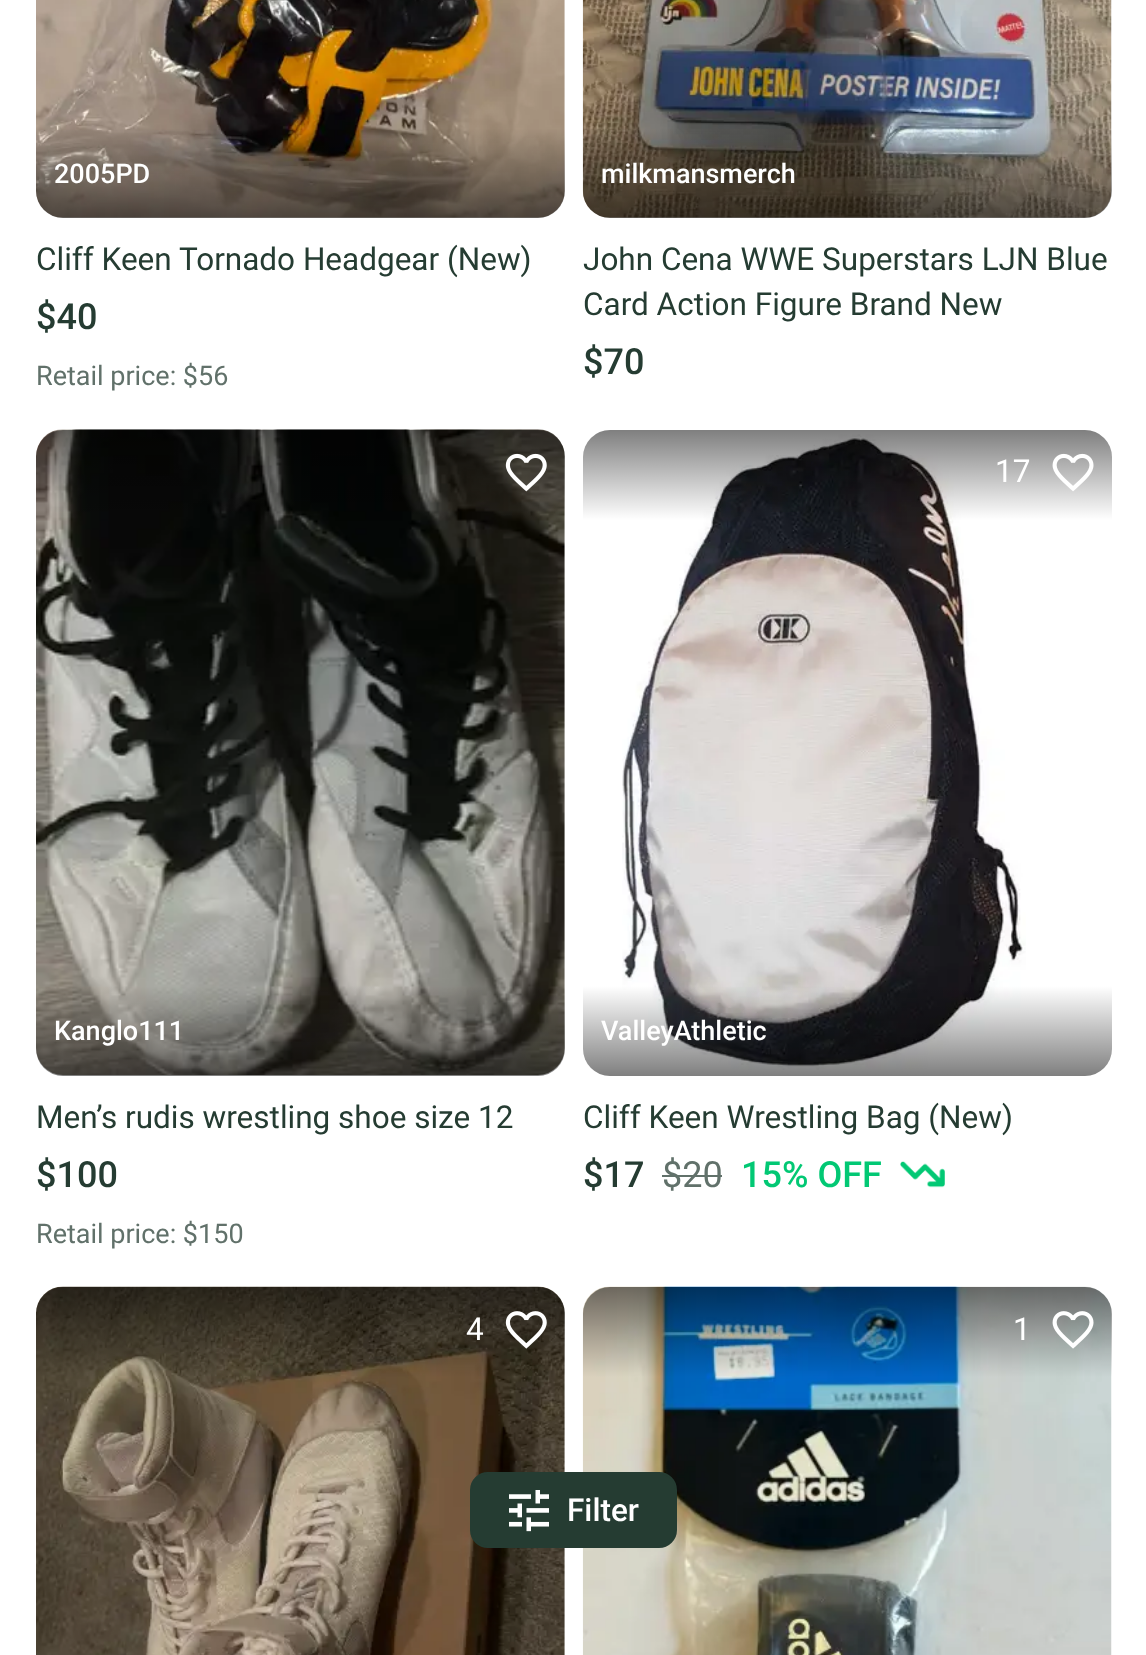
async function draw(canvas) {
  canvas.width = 1146;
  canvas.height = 1655;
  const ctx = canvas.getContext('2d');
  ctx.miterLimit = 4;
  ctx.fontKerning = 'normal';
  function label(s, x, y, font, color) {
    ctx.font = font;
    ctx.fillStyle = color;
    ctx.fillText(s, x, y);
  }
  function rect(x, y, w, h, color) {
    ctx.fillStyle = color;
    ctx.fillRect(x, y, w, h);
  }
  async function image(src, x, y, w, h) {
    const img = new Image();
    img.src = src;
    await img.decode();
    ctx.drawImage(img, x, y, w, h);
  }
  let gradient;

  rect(0, 0, 1146, 1655, '#fff');
  await image('assets/img1.png', 36, 0, 529, 218);
  gradient = ctx.createLinearGradient(300, 128, 300, 218);
  gradient.addColorStop(0, '#00000000');
  gradient.addColorStop(1, '#00000080');
  ctx.fillStyle = gradient;
  ctx.beginPath();
  ctx.roundRect(36, 128, 529, 90, [0, 0, 27, 27]);
  ctx.fill();
  label('2005PD', 54, 183, '500 27px Roboto', '#fff');
  label('Cliff Keen Tornado Headgear (New)', 36, 270, '31.5px Roboto', '#253c32');
  label('$40', 36, 329, '500 36px Roboto', '#253c32');
  label('Retail price: $56', 36, 385, '27px Roboto', '#61716a');
  await image('assets/img2.png', 582, 0, 530, 218);
  gradient = ctx.createLinearGradient(847, 128, 847, 218);
  gradient.addColorStop(0, '#00000000');
  gradient.addColorStop(1, '#00000080');
  ctx.fillStyle = gradient;
  ctx.beginPath();
  ctx.roundRect(583, 128, 529, 90, [0, 0, 27, 27]);
  ctx.fill();
  label('milkmansmerch', 601, 183, '500 27px Roboto', '#fff');
  label('John Cena WWE Superstars LJN Blue', 583, 270, '31.5px Roboto', '#253c32');
  label('Card Action Figure Brand New', 583, 315, '31.5px Roboto', '#253c32');
  label('$70', 583, 374, '500 36px Roboto', '#253c32');
  await image('assets/img3.png', 36, 429, 529, 646);
  gradient = ctx.createLinearGradient(300, 520, 300, 430);
  gradient.addColorStop(0, '#00000000');
  gradient.addColorStop(1, '#00000080');
  ctx.fillStyle = gradient;
  ctx.beginPath();
  ctx.roundRect(36, 430, 529, 90, [27, 27, 0, 0]);
  ctx.fill();
  gradient = ctx.createLinearGradient(300, 986, 300, 1076);
  gradient.addColorStop(0, '#00000000');
  gradient.addColorStop(1, '#00000080');
  ctx.fillStyle = gradient;
  ctx.beginPath();
  ctx.roundRect(36, 986, 529, 90, [0, 0, 27, 27]);
  ctx.fill();
  await image('assets/img4.png', 505, 453, 42, 39);
  label('Kanglo111', 54, 1040, '500 27px Roboto', '#fff');
  label('Men’s rudis wrestling shoe size 12', 36, 1128, '31.5px Roboto', '#253c32');
  label('$100', 36, 1187, '500 36px Roboto', '#253c32');
  label('Retail price: $150', 36, 1243, '27px Roboto', '#61716a');
  await image('assets/img5.png', 622, 434, 404, 636);
  gradient = ctx.createLinearGradient(847, 520, 847, 430);
  gradient.addColorStop(0, '#00000000');
  gradient.addColorStop(1, '#00000080');
  ctx.fillStyle = gradient;
  ctx.beginPath();
  ctx.roundRect(583, 430, 529, 90, [27, 27, 0, 0]);
  ctx.fill();
  label('17', 995, 482, '31.5px Roboto', '#fff');
  await image('assets/img6.png', 1052, 453, 42, 39);
  gradient = ctx.createLinearGradient(847, 986, 847, 1076);
  gradient.addColorStop(0, '#00000000');
  gradient.addColorStop(1, '#00000080');
  ctx.fillStyle = gradient;
  ctx.beginPath();
  ctx.roundRect(583, 986, 529, 90, [0, 0, 27, 27]);
  ctx.fill();
  label('ValleyAthletic', 601, 1040, '500 27px Roboto', '#fff');
  label('Cliff Keen Wrestling Bag (New)', 583, 1128, '31.5px Roboto', '#253c32');
  label('$17', 583, 1187, '500 36px Roboto', '#253c32');
  label('$20', 662, 1187, '36px Roboto', '#61716a');
  rect(662, 1175, 60, 2, '#61716a');
  label('15% OFF', 741, 1187, '500 36px Roboto', '#02c874');
  await image('assets/img7.png', 900, 1161, 45, 27);
  await image('assets/img8.png', 36, 1286, 529, 369);
  gradient = ctx.createLinearGradient(300, 1377, 300, 1287);
  gradient.addColorStop(0, '#00000000');
  gradient.addColorStop(1, '#00000080');
  ctx.fillStyle = gradient;
  ctx.beginPath();
  ctx.roundRect(36, 1287, 529, 90, [27, 27, 0, 0]);
  ctx.fill();
  label('4', 466, 1340, '31.5px Roboto', '#fff');
  await image('assets/img9.png', 505, 1311, 42, 38);
  await image('assets/img10.png', 582, 1286, 530, 369);
  gradient = ctx.createLinearGradient(847, 1377, 847, 1287);
  gradient.addColorStop(0, '#00000000');
  gradient.addColorStop(1, '#00000080');
  ctx.fillStyle = gradient;
  ctx.beginPath();
  ctx.roundRect(583, 1287, 529, 90, [27, 27, 0, 0]);
  ctx.fill();
  label('1', 1013, 1340, '31.5px Roboto', '#fff');
  await image('assets/img11.png', 1052, 1311, 42, 38);
  ctx.fillStyle = '#253c32';
  ctx.beginPath();
  ctx.roundRect(471, 1473, 205, 74, 17);
  ctx.fill();
  ctx.strokeStyle = '#253c32';
  ctx.lineWidth = 2;
  ctx.stroke();
  await image('assets/img12.png', 509, 1490, 40, 42);
  label('Filter', 567, 1521, '500 31.5px Roboto', '#fff');
}

draw(document.querySelector('canvas'));
